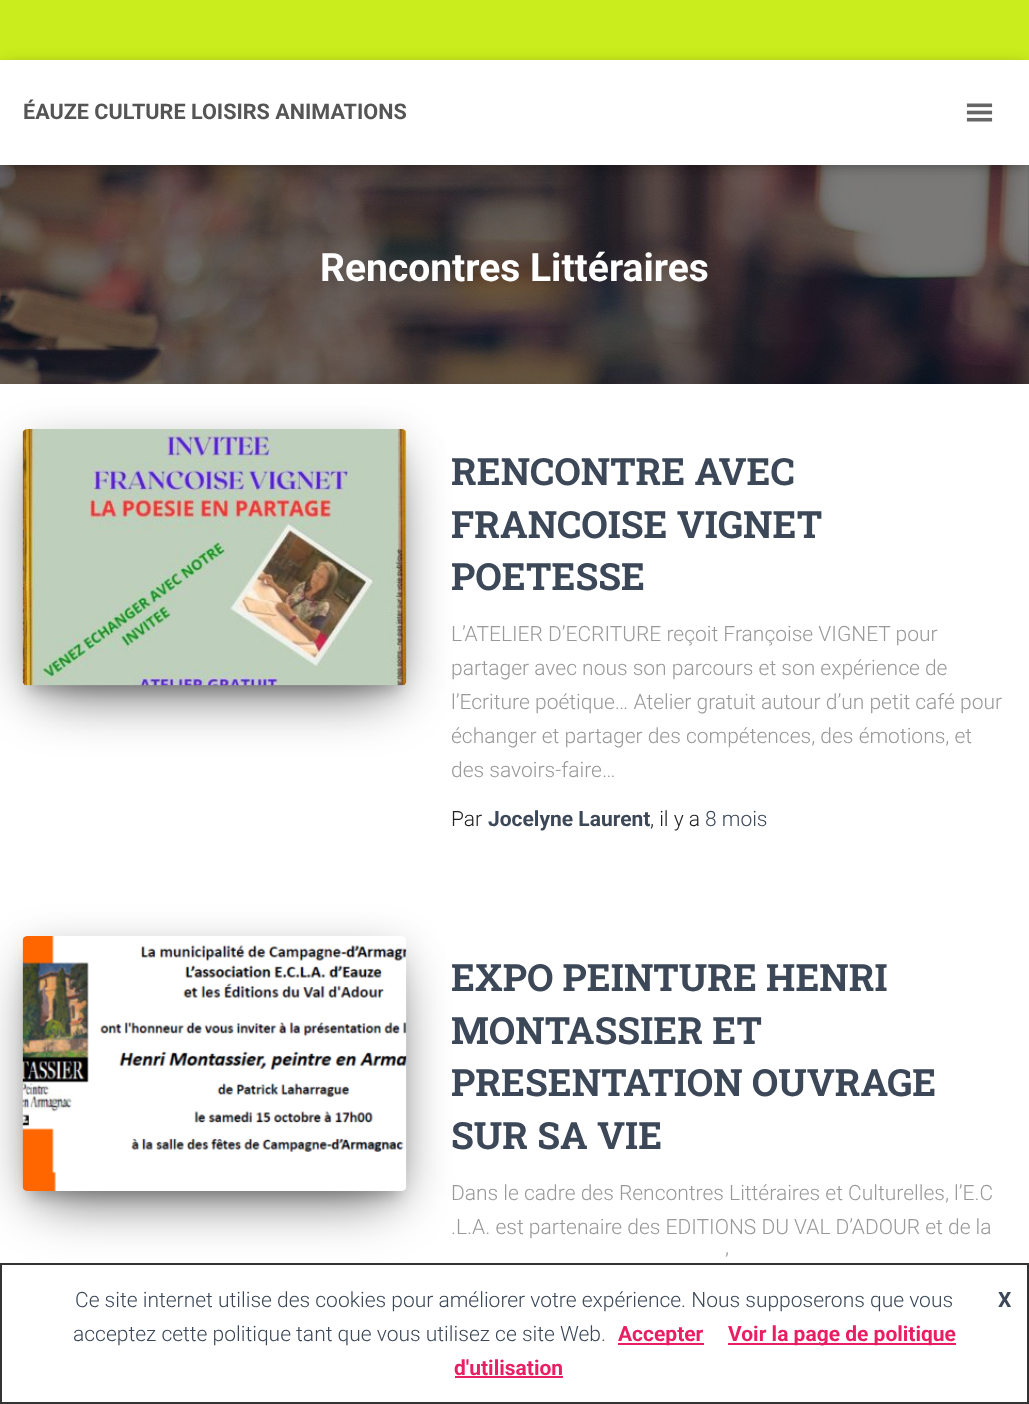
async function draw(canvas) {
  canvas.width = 1029;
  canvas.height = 1404;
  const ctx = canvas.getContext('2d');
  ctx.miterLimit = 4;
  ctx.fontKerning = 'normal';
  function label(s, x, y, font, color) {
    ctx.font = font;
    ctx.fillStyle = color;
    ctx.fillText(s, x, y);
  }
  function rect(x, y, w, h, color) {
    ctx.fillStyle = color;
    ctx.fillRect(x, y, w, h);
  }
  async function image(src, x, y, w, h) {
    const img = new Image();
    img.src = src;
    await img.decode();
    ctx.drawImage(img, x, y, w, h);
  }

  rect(0, 0, 1029, 1404, '#fff');
  await image('assets/img1.png', 1028, 165, 1, 219);
  rect(0, 0, 1029, 60, '#caed1d');
  await image('assets/img3.png', 0, 165, 1029, 219);
  rect(0, 165, 1029, 219, '#00000080');
  ctx.fillStyle = '#0000001a';
  ctx.filter = 'blur(4px)';
  ctx.beginPath();
  ctx.rect(3, 69, 1023, 99);
  ctx.fill();
  ctx.filter = 'none';
  ctx.fillStyle = '#0000001f';
  ctx.filter = 'blur(7.5px)';
  ctx.beginPath();
  ctx.rect(0, 62, 1029, 105);
  ctx.fill();
  ctx.filter = 'none';
  ctx.fillStyle = '#0000006b';
  ctx.filter = 'blur(7.5px)';
  ctx.beginPath();
  ctx.rect(9, 71, 1011, 87);
  ctx.fill();
  ctx.filter = 'none';
  rect(0, 60, 1029, 105, '#fff');
  label('ÉAUZE CULTURE LOISIRS ANIMATIONS', 23, 119, 'bold 21.6px Roboto', '#555');
  await image('assets/img2.png', 966, 103, 27, 19);
  label('Rencontres Littéraires', 320, 281, 'bold 39px Roboto', '#fff');
  ctx.fillStyle = '#0000001f';
  ctx.filter = 'blur(22.5px)';
  ctx.beginPath();
  ctx.rect(-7, 386, 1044, 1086);
  ctx.fill();
  ctx.filter = 'none';
  rect(0, 384, 1029, 879, '#fff');
  ctx.fillStyle = '#00000033';
  ctx.filter = 'blur(7.5px)';
  ctx.beginPath();
  ctx.rect(30, 449, 369, 241);
  ctx.fill();
  ctx.filter = 'none';
  ctx.fillStyle = '#0000001f';
  ctx.filter = 'blur(19px)';
  ctx.beginPath();
  ctx.roundRect(23, 435, 384, 257, 5);
  ctx.fill();
  ctx.filter = 'none';
  ctx.fillStyle = '#0000008f';
  ctx.filter = 'blur(28.5px)';
  ctx.beginPath();
  ctx.rect(41, 471, 348, 221);
  ctx.fill();
  ctx.filter = 'none';
  await image('assets/img4.png', 22, 429, 385, 257);
  label('RENCONTRE AVEC', 451, 485, 'bold 37.5px Roboto Slab', '#3c4858');
  label('FRANCOISE VIGNET', 451, 538, 'bold 37.5px Roboto Slab', '#3c4858');
  label('POETESSE', 451, 590, 'bold 37.5px Roboto Slab', '#3c4858');
  label('L’ATELIER D’ECRITURE reçoit Françoise VIGNET pour', 451, 641, '300 21px Roboto', '#999');
  label('partager avec nous son parcours et son expérience de', 451, 675, '300 21px Roboto', '#999');
  label('l’Ecriture poétique… Atelier gratuit autour d’un petit café pour', 451, 709, '300 21px Roboto', '#999');
  label('échanger et partager des compétences, des émotions, et', 451, 743, '300 21px Roboto', '#999');
  label('des savoirs-faire…', 451, 777, '300 21px Roboto', '#999');
  label('Par', 451, 826, '300 21px Roboto', '#212121');
  label('Jocelyne Laurent', 488, 826, 'bold 21px Roboto', '#3c4858');
  label(', il y a', 650, 826, '300 21px Roboto', '#212121');
  label('8 mois', 705, 826, '300 21px Roboto', '#3c4858');
  ctx.fillStyle = '#00000033';
  ctx.filter = 'blur(7.5px)';
  ctx.beginPath();
  ctx.rect(30, 956, 369, 240);
  ctx.fill();
  ctx.filter = 'none';
  ctx.fillStyle = '#0000001f';
  ctx.filter = 'blur(19px)';
  ctx.beginPath();
  ctx.roundRect(23, 942, 384, 255, 5);
  ctx.fill();
  ctx.filter = 'none';
  ctx.fillStyle = '#0000008f';
  ctx.filter = 'blur(28.5px)';
  ctx.beginPath();
  ctx.rect(41, 978, 348, 219);
  ctx.fill();
  ctx.filter = 'none';
  await image('assets/img5.png', 22, 936, 385, 255);
  label('EXPO PEINTURE HENRI', 451, 991, 'bold 37.5px Roboto Slab', '#3c4858');
  label('MONTASSIER ET', 451, 1044, 'bold 37.5px Roboto Slab', '#3c4858');
  label('PRESENTATION OUVRAGE', 451, 1096, 'bold 37.5px Roboto Slab', '#3c4858');
  label('SUR SA VIE', 451, 1149, 'bold 37.5px Roboto Slab', '#3c4858');
  label('Dans le cadre des Rencontres Littéraires et Culturelles, l’E.C', 451, 1200, '300 21px Roboto', '#999');
  label('.L.A. est partenaire des EDITIONS DU VAL D’ADOUR et de la', 451, 1234, '300 21px Roboto', '#999');
  label('’', 725, 1268, '300 21px Roboto', '#999');
  ctx.fillStyle = '#fff';
  ctx.beginPath();
  ctx.rect(1, 1264, 1027, 139);
  ctx.fill();
  ctx.strokeStyle = '#333';
  ctx.lineWidth = 2;
  ctx.stroke();
  label('Ce site internet utilise des cookies pour améliorer votre expérience. Nous supposerons que vous', 75, 1307, '300 21px Roboto', '#3c4858');
  label('X', 998, 1307, 'bold 21px Roboto', '#3c4858');
  label('acceptez cette politique tant que vous utilisez ce site Web.', 73, 1341, '300 21px Roboto', '#3c4858');
  rect(618, 1343, 86, 2, '#e91e63');
  label('Accepter', 618, 1341, 'bold 21px Roboto', '#e91e63');
  rect(728, 1343, 228, 2, '#e91e63');
  label('Voir la page de politique', 728, 1341, 'bold 21px Roboto', '#e91e63');
  label('d\'utilisation', 454, 1375, 'bold 21px Roboto', '#e91e63');
  rect(455, 1376, 108, 2, '#e91e63');
}

draw(document.querySelector('canvas'));
